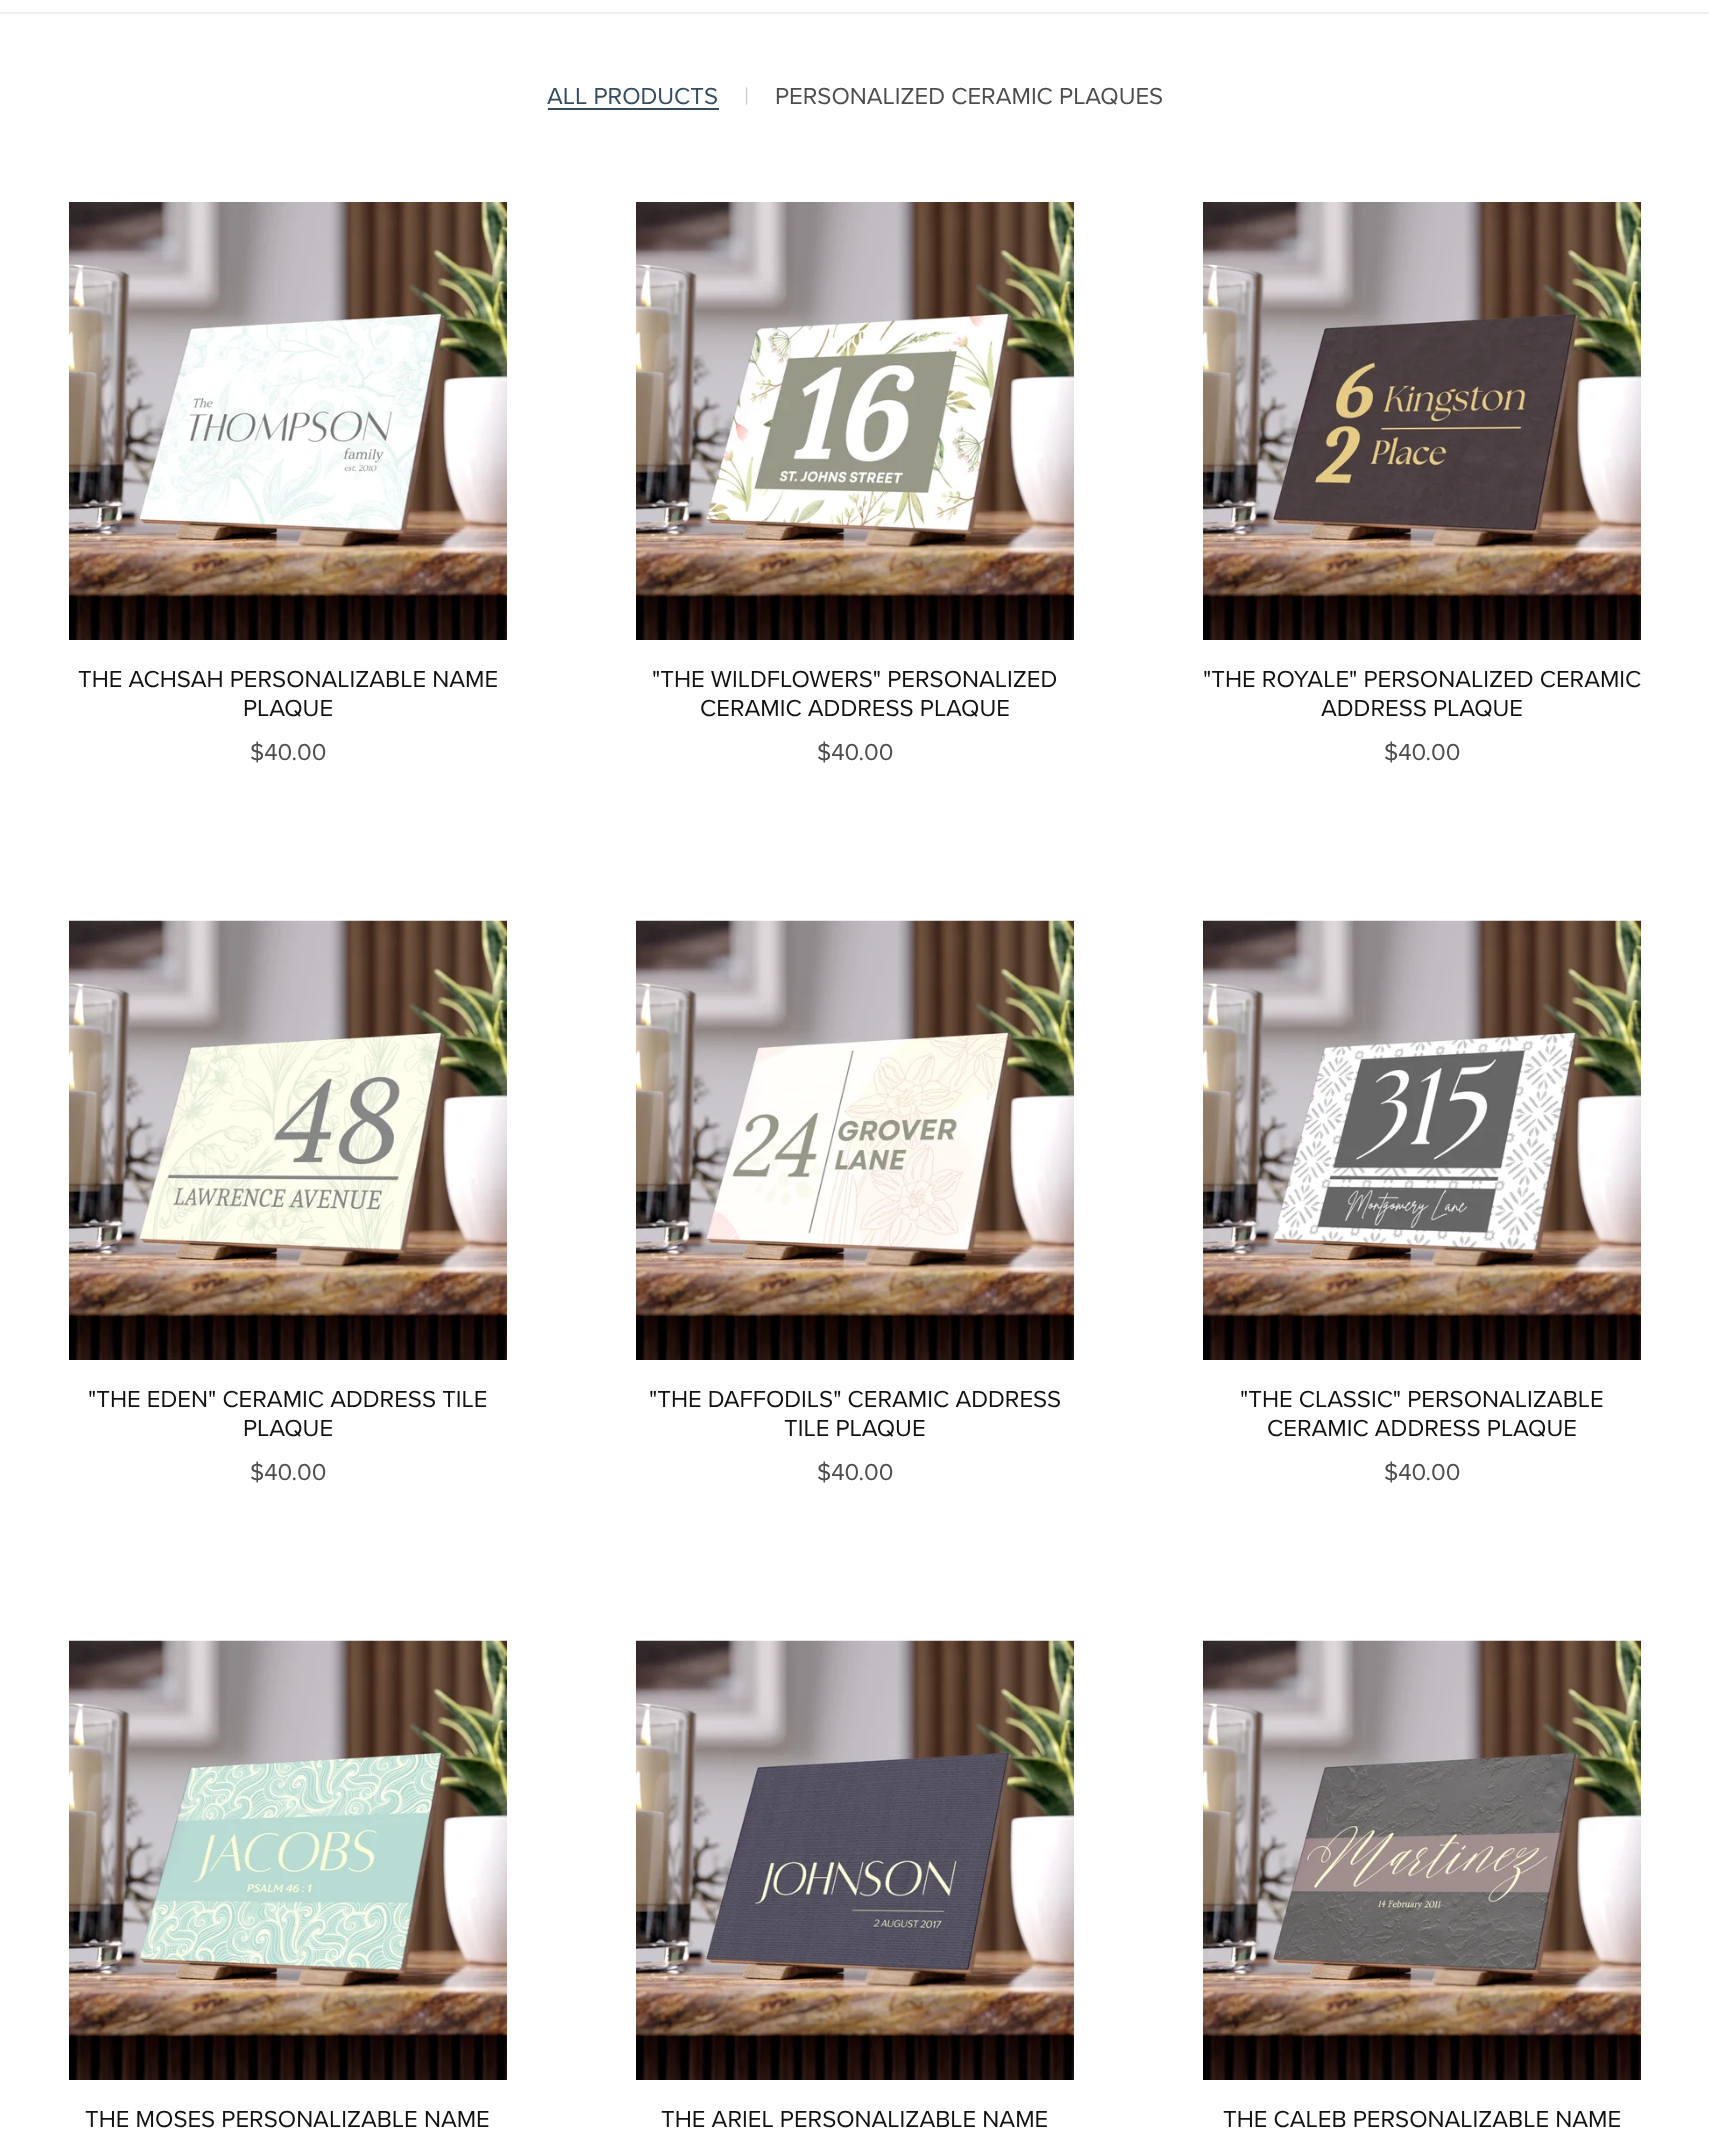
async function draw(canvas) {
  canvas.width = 1709;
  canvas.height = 2131;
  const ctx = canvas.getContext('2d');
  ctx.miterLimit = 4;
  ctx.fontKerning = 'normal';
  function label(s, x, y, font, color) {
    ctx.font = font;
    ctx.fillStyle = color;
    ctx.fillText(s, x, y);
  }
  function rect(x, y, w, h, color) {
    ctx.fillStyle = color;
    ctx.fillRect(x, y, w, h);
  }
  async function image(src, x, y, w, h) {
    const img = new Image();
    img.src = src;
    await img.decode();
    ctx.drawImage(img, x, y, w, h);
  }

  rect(0, 0, 1709, 2131, '#fff');
  rect(0, 12, 1709, 2, '#ededed');
  label('ALL PRODUCTS', 547, 104, '24px Proxima Nova', '#344b60');
  rect(548, 108, 171, 2, '#344b60');
  label('|', 744, 104, '24px Proxima Nova', '#cacaca');
  label('PERSONALIZED CERAMIC PLAQUES', 775, 104, '24px Proxima Nova', '#4d4d4d');
  await image('assets/img1.png', 69, 202, 438, 438);
  label('THE ACHSAH PERSONALIZABLE NAME', 78, 687, '24px Proxima Nova', '#121212');
  label('PLAQUE', 243, 716, '24px Proxima Nova', '#121212');
  label('$40.00', 250, 760, '24px Proxima Nova', '#4d4d4d');
  await image('assets/img2.png', 636, 202, 438, 438);
  label('"THE WILDFLOWERS" PERSONALIZED', 652, 687, '24px Proxima Nova', '#121212');
  label('CERAMIC ADDRESS PLAQUE', 700, 716, '24px Proxima Nova', '#121212');
  label('$40.00', 817, 760, '24px Proxima Nova', '#4d4d4d');
  await image('assets/img3.png', 1203, 202, 438, 438);
  label('"THE ROYALE" PERSONALIZED CERAMIC', 1203, 687, '24px Proxima Nova', '#121212');
  label('ADDRESS PLAQUE', 1321, 716, '24px Proxima Nova', '#121212');
  label('$40.00', 1384, 760, '24px Proxima Nova', '#4d4d4d');
  await image('assets/img4.png', 69, 920, 438, 440);
  label('"THE EDEN" CERAMIC ADDRESS TILE', 88, 1407, '24px Proxima Nova', '#121212');
  label('PLAQUE', 243, 1436, '24px Proxima Nova', '#121212');
  label('$40.00', 250, 1480, '24px Proxima Nova', '#4d4d4d');
  await image('assets/img5.png', 636, 920, 438, 440);
  label('"THE DAFFODILS" CERAMIC ADDRESS', 649, 1407, '24px Proxima Nova', '#121212');
  label('TILE PLAQUE', 784, 1436, '24px Proxima Nova', '#121212');
  label('$40.00', 817, 1480, '24px Proxima Nova', '#4d4d4d');
  await image('assets/img6.png', 1203, 920, 438, 440);
  label('"THE CLASSIC" PERSONALIZABLE', 1240, 1407, '24px Proxima Nova', '#121212');
  label('CERAMIC ADDRESS PLAQUE', 1267, 1436, '24px Proxima Nova', '#121212');
  label('$40.00', 1384, 1480, '24px Proxima Nova', '#4d4d4d');
  await image('assets/img7.png', 69, 1640, 438, 440);
  label('THE MOSES PERSONALIZABLE NAME', 85, 2127, '24px Proxima Nova', '#121212');
  await image('assets/img8.png', 636, 1640, 438, 440);
  label('THE ARIEL PERSONALIZABLE NAME', 661, 2127, '24px Proxima Nova', '#121212');
  await image('assets/img9.png', 1203, 1640, 438, 440);
  label('THE CALEB PERSONALIZABLE NAME', 1223, 2127, '24px Proxima Nova', '#121212');
}

draw(document.querySelector('canvas'));
